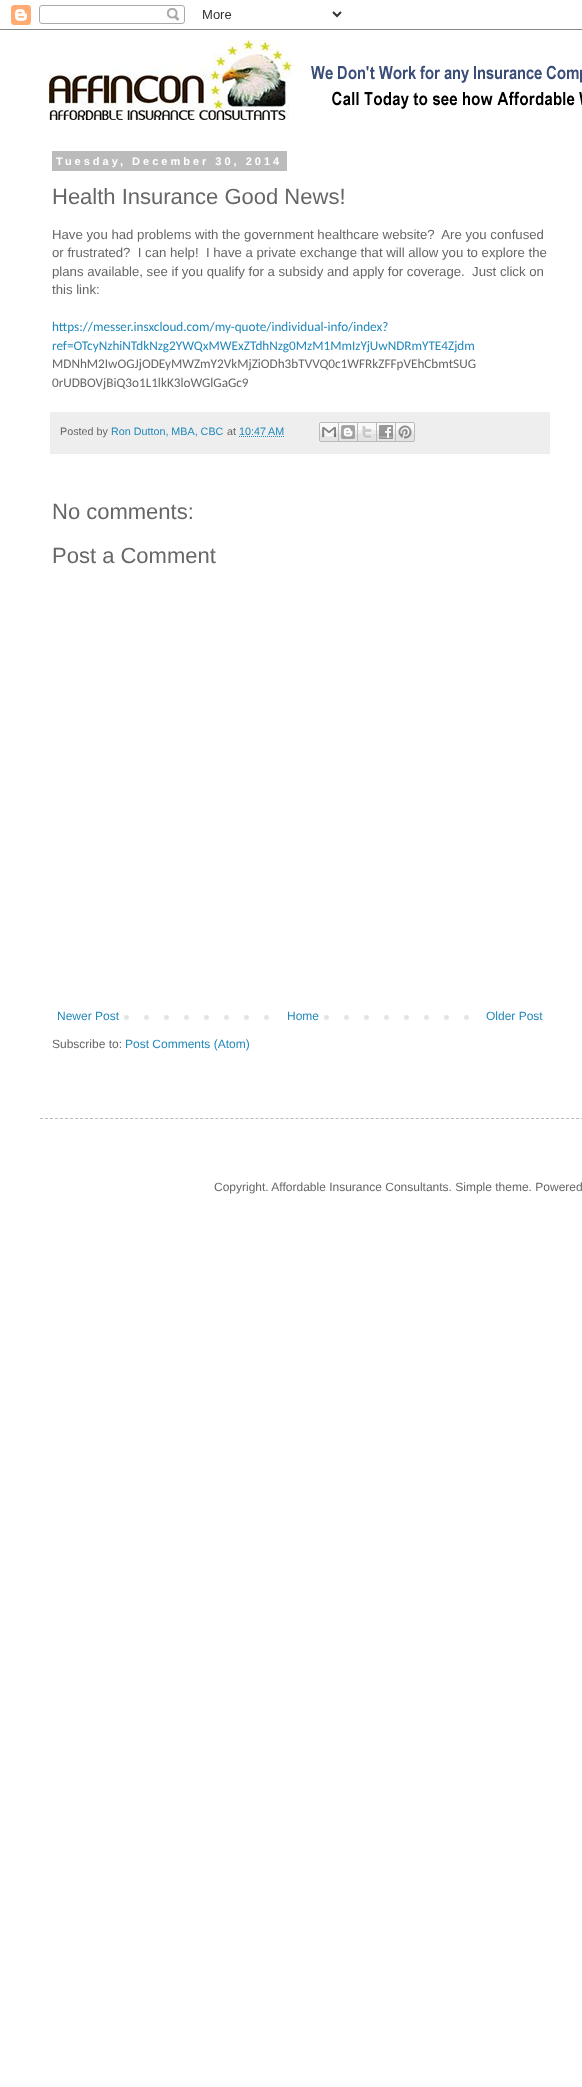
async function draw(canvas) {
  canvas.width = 582;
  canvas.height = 2087;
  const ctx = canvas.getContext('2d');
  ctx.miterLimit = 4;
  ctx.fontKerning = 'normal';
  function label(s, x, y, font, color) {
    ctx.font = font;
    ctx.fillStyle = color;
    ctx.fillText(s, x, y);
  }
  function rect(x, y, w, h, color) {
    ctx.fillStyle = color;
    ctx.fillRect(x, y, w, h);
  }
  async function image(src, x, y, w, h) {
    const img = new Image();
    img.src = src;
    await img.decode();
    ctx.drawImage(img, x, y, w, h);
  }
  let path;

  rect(0, 0, 582, 2087, '#fff');
  await image('assets/img1.png', 0, 5, 582, 25);
  await image('assets/img2.png', 49, 40, 533, 80);
  rect(52, 151, 235, 20, '#bbb');
  ctx.letterSpacing = '3px';
  label('Tuesday, December 30, 2014', 56, 165, 'bold 11px Liberation Sans', '#fff');
  ctx.letterSpacing = '0px';
  label('Health Insurance Good News!', 52, 204, '22px Liberation Sans', '#666');
  label('Have you had problems with the government healthcare website?  Are you confused', 52, 239, '13.2px Liberation Sans', '#666');
  label('or frustrated?  I can help!  I have a private exchange that will allow you to explore the', 52, 257, '13.2px Liberation Sans', '#666');
  label('plans available, see if you qualify for a subsidy and apply for coverage.  Just click on', 52, 276, '13.2px Liberation Sans', '#666');
  label('this link:', 52, 294, '13.2px Liberation Sans', '#666');
  label('https://messer.insxcloud.com/my-quote/individual-info/index?', 52, 331, '13.2px Carlito', '#28b');
  label('ref=OTcyNzhiNTdkNzg2YWQxMWExZTdhNzg0MzM1MmIzYjUwNDRmYTE4Zjdm', 52, 350, '13.2px Carlito', '#28b');
  label('MDNhM2IwOGJjODEyMWZmY2VkMjZiODh3bTVVQ0c1WFRkZFFpVEhCbmtSUG', 52, 368, '13.2px Carlito', '#666');
  label('0rUDBOVjBiQ3o1L1lkK3loWGlGaGc9', 52, 387, '13.2px Carlito', '#666');
  rect(50, 412, 500, 42, '#eee');
  label('Posted by', 60, 435, '10.75px Liberation Sans', '#666');
  label('Ron Dutton, MBA, CBC', 111, 435, '10.75px Liberation Sans', '#28b');
  label('at', 227, 435, '10.75px Liberation Sans', '#666');
  label('10:47 AM', 239, 435, '10.75px Liberation Sans', '#28b');
  path = new Path2D('M239 436.5H284');
  ctx.strokeStyle = '#28b';
  ctx.setLineDash([1, 1]);
  ctx.stroke(path);
  await image('assets/img3.png', 319, 422, 20, 20);
  await image('assets/img4.png', 339, 422, 19, 20);
  await image('assets/img5.png', 358, 422, 19, 20);
  await image('assets/img6.png', 377, 422, 19, 20);
  await image('assets/img7.png', 396, 422, 19, 20);
  label('No comments:', 52, 519, '22px Liberation Sans', '#666');
  label('Post a Comment', 52, 563, '22px Liberation Sans', '#666');
  await image('assets/img8.png', 124, 1015, 345, 5);
  label('Newer Post', 57, 1020, '12px Liberation Sans', '#28b');
  rect(284, 1015, 26, 5, '#fff');
  label('Home', 287, 1020, '12px Liberation Sans', '#28b');
  label('Older Post', 486, 1020, '12px Liberation Sans', '#28b');
  label('Subscribe to:', 52, 1048, '12px Liberation Sans', '#666');
  label('Post Comments (Atom)', 125, 1048, '12px Liberation Sans', '#28b');
  path = new Path2D('M40 1118.5H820');
  ctx.strokeStyle = '#bbb';
  ctx.setLineDash([3, 2.01]);
  ctx.stroke(path);
  label('Copyright. Affordable Insurance Consultants. Simple theme. Powered', 214, 1191, '12px Liberation Sans', '#666');
}

draw(document.querySelector('canvas'));
